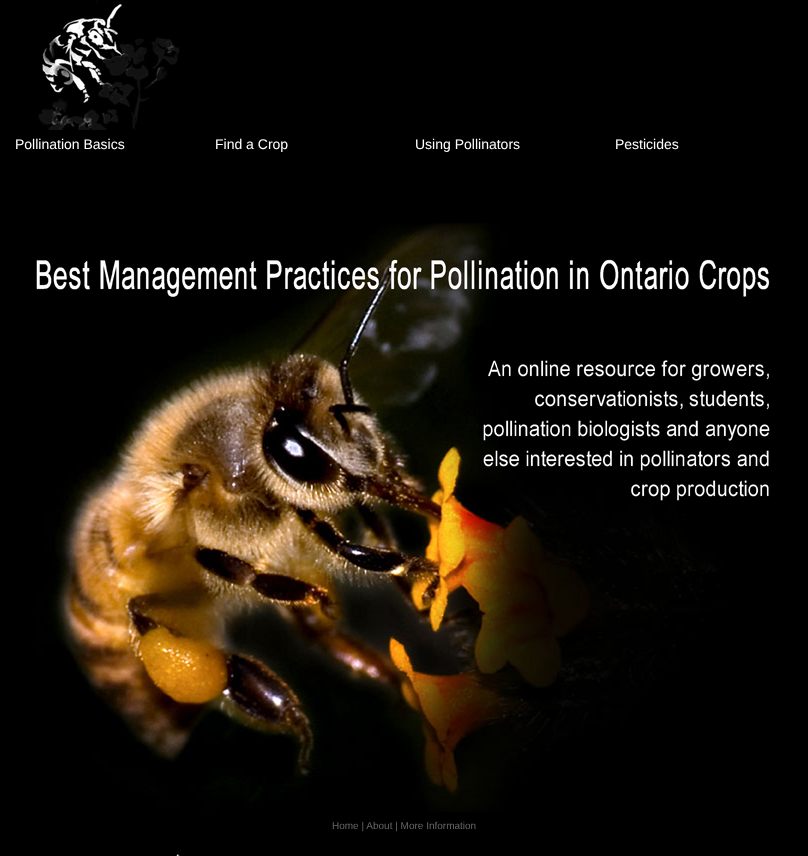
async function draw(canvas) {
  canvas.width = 808;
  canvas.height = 856;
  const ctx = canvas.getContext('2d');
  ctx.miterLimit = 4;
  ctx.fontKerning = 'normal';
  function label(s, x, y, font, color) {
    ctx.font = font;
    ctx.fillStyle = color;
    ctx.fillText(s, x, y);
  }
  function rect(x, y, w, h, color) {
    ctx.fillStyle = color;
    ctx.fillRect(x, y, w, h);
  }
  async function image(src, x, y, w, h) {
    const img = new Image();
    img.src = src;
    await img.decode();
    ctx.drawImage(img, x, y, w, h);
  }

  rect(0, 0, 808, 856, '#000');
  await image('assets/img1.png', 38, 0, 142, 130);
  label('Pollination Basics', 15, 149, '14px Liberation Sans', '#fff');
  label('Find a Crop', 215, 149, '14px Liberation Sans', '#fff');
  label('Using Pollinators', 415, 149, '14px Liberation Sans', '#fff');
  label('Pesticides', 615, 149, '14px Liberation Sans', '#fff');
  await image('assets/img2.png', 36, 223, 734, 589);
  label('Home | About | More Information', 332, 829, '10px Liberation Sans', '#666');
  await image('assets/img3.png', 176, 850, 5, 6);
}

draw(document.querySelector('canvas'));
